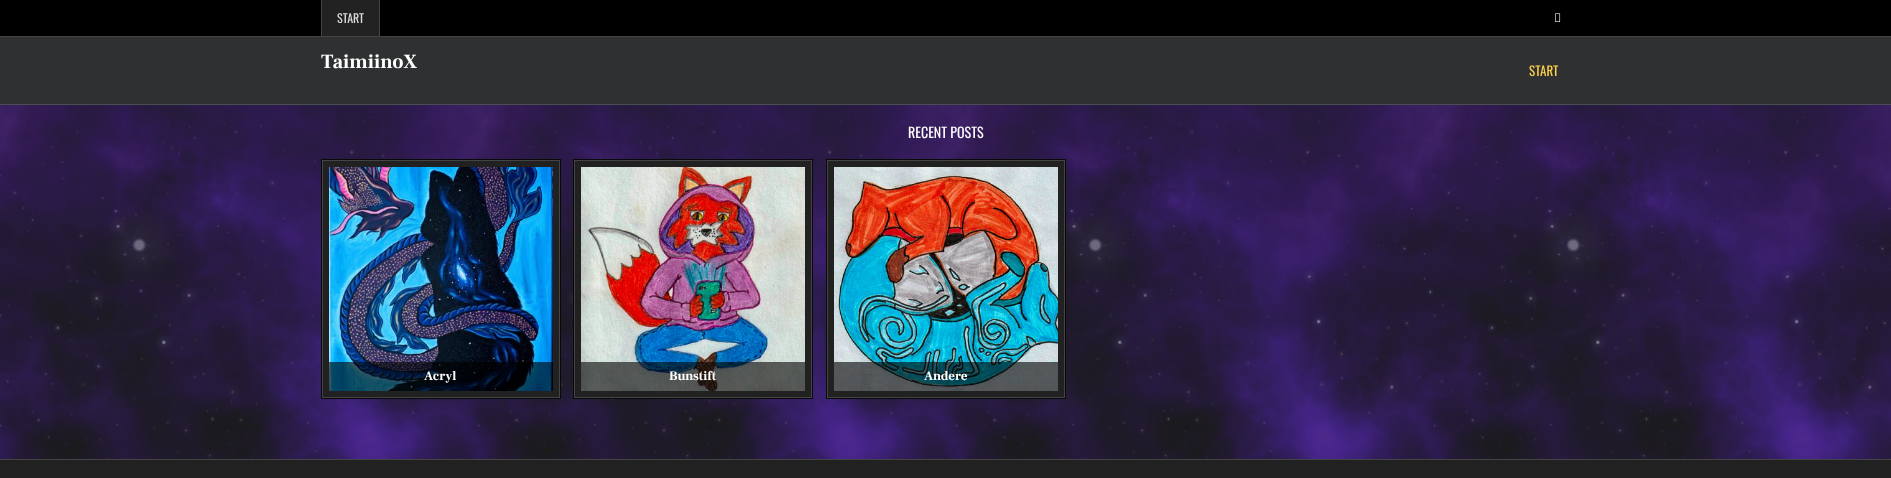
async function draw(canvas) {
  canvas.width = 1891;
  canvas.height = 478;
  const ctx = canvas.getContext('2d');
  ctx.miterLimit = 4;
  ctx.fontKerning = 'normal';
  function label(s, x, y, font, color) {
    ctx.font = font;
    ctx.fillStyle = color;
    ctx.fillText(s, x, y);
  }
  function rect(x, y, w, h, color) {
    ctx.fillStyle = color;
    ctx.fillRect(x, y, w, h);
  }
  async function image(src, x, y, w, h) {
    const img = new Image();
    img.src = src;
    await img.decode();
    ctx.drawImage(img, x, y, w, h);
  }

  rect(0, 0, 1891, 478, '#fff');
  await image('assets/img1.png', 0, 105, 1891, 354);
  rect(0, 0, 1891, 36, '#000');
  rect(0, 36, 1891, 1, '#444');
  rect(322, 0, 57, 36, '#222');
  rect(379, 0, 1, 36, '#444');
  rect(321, 0, 1, 36, '#444');
  label('START', 337, 23, '12px Oswald', '#ddd');
  await image('assets/img2.png', 1555, 13, 6, 9);
  rect(0, 37, 1891, 67, '#2f3031');
  rect(0, 104, 1891, 1, '#4a4e53');
  label('TaimiinoX', 321, 68, 'bold 20px Frank Ruhl Libre', '#fff');
  label('START', 1529, 76, '13px Oswald', '#ffd24b');
  label('RECENT POSTS', 908, 138, '14px Oswald', '#fff');
  rect(323, 161, 236, 236, '#212121');
  ctx.strokeStyle = '#090909';
  ctx.strokeRect(321.5, 159.5, 239, 239);
  ctx.strokeStyle = '#444';
  ctx.strokeRect(322.5, 160.5, 237, 237);
  await image('assets/img3.png', 329, 167, 224, 224);
  rect(329, 362, 224, 29, '#00000099');
  label('Acryl', 424, 380, 'bold 13px Frank Ruhl Libre', '#fff');
  rect(575, 161, 236, 236, '#212121');
  ctx.strokeStyle = '#090909';
  ctx.strokeRect(573.5, 159.5, 239, 239);
  ctx.strokeStyle = '#444';
  ctx.strokeRect(574.5, 160.5, 237, 237);
  await image('assets/img4.png', 581, 167, 224, 224);
  rect(581, 362, 224, 29, '#00000099');
  label('Bunstift', 669, 380, 'bold 13px Frank Ruhl Libre', '#fff');
  rect(828, 161, 236, 236, '#212121');
  ctx.strokeStyle = '#090909';
  ctx.strokeRect(826.5, 159.5, 239, 239);
  ctx.strokeStyle = '#444';
  ctx.strokeRect(827.5, 160.5, 237, 237);
  await image('assets/img5.png', 834, 167, 224, 224);
  rect(834, 362, 224, 29, '#00000099');
  label('Andere', 924, 380, 'bold 13px Frank Ruhl Libre', '#fff');
  rect(0, 460, 1891, 18, '#212121');
  rect(0, 459, 1891, 1, '#444');
}

draw(document.querySelector('canvas'));
